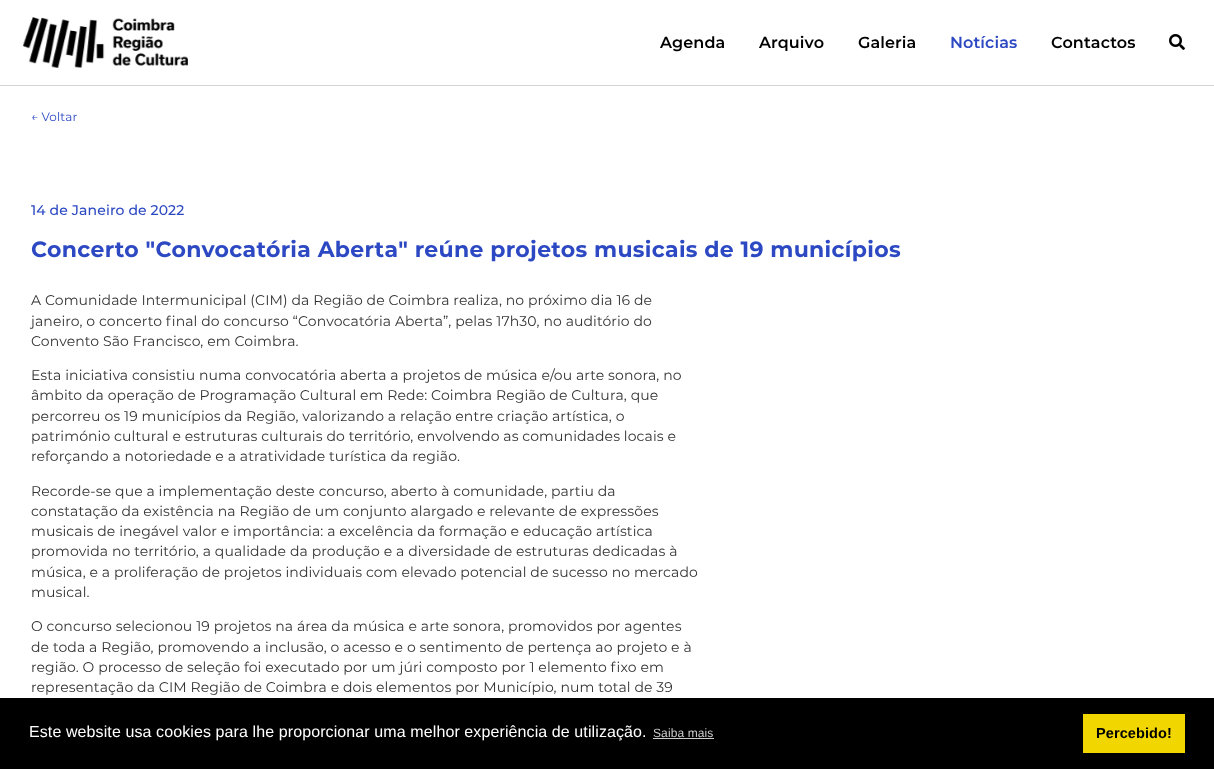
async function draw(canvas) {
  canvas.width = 1214;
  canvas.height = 769;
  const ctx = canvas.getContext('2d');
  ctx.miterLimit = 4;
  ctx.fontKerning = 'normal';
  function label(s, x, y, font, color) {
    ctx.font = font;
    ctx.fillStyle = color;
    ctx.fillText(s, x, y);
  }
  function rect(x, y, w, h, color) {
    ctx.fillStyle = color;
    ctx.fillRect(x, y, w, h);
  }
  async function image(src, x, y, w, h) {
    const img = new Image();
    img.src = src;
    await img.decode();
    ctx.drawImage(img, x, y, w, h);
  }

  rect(0, 0, 1214, 769, '#fff');
  rect(0, 85, 1214, 1, '#d4d4d4');
  await image('assets/img1.png', 22, 17, 166, 51);
  ctx.letterSpacing = '0.1px';
  label('Agenda', 660, 48, '600 16px Montserrat', '#000');
  label('Arquivo', 759, 48, '600 16px Montserrat', '#000');
  label('Galeria', 858, 48, '600 16px Montserrat', '#000');
  label('Notícias', 950, 48, '600 16px Montserrat', '#2c49c3');
  label('Contactos', 1051, 48, '600 16px Montserrat', '#000');
  await image('assets/img2.png', 1169, 34, 16, 16);
  label('← Voltar', 31, 121, '12px Montserrat', '#2c49c3');
  label('14 de Janeiro de 2022', 31, 215, '500 14px Montserrat', '#2c49c3');
  ctx.letterSpacing = '0.3px';
  label('Concerto "Convocatória Aberta" reúne projetos musicais de 19 municípios', 31, 257, 'bold 22px Montserrat', '#2c49c3');
  ctx.letterSpacing = '0.1px';
  label('A Comunidade Intermunicipal (CIM) da Região de Coimbra realiza, no próximo dia 16 de', 31, 305, '14px Montserrat', '#333');
  label('janeiro, o concerto final do concurso “Convocatória Aberta”, pelas 17h30, no auditório do', 31, 326, '14px Montserrat', '#333');
  label('Convento São Francisco, em Coimbra.', 31, 346, '14px Montserrat', '#333');
  label('Esta iniciativa consistiu numa convocatória aberta a projetos de música e/ou arte sonora, no', 31, 380, '14px Montserrat', '#333');
  label('âmbito da operação de Programação Cultural em Rede: Coimbra Região de Cultura, que', 31, 400, '14px Montserrat', '#333');
  label('percorreu os 19 municípios da Região, valorizando a relação entre criação artística, o', 31, 421, '14px Montserrat', '#333');
  label('património cultural e estruturas culturais do território, envolvendo as comunidades locais e', 31, 441, '14px Montserrat', '#333');
  label('reforçando a notoriedade e a atratividade turística da região.', 31, 461, '14px Montserrat', '#333');
  label('Recorde-se que a implementação deste concurso, aberto à comunidade, partiu da', 31, 496, '14px Montserrat', '#333');
  label('constatação da existência na Região de um conjunto alargado e relevante de expressões', 31, 516, '14px Montserrat', '#333');
  label('musicais de inegável valor e importância: a excelência da formação e educação artística', 31, 536, '14px Montserrat', '#333');
  label('promovida no território, a qualidade da produção e a diversidade de estruturas dedicadas à', 31, 556, '14px Montserrat', '#333');
  label('música, e a proliferação de projetos individuais com elevado potencial de sucesso no mercado', 31, 577, '14px Montserrat', '#333');
  label('musical.', 31, 597, '14px Montserrat', '#333');
  label('O concurso selecionou 19 projetos na área da música e arte sonora, promovidos por agentes', 31, 631, '14px Montserrat', '#333');
  label('de toda a Região, promovendo a inclusão, o acesso e o sentimento de pertença ao projeto e à', 31, 652, '14px Montserrat', '#333');
  label('região. O processo de seleção foi executado por um júri composto por 1 elemento fixo em', 31, 672, '14px Montserrat', '#333');
  label('representação da CIM Região de Coimbra e dois elementos por Município, num total de 39', 31, 692, '14px Montserrat', '#333');
  rect(0, 698, 1214, 71, '#000');
  label('Este website usa cookies para lhe proporcionar uma melhor experiência de utilização.', 29, 737, '16px Liberation Sans', '#fff');
  label('Saiba mais', 653, 737, '12px Liberation Sans', '#ccc');
  rect(653, 738, 61, 1, '#ccc');
  rect(1083, 714, 102, 39, '#f1d600');
  label('Percebido!', 1096, 738, 'bold 14.5px Liberation Sans', '#000');
}

draw(document.querySelector('canvas'));
